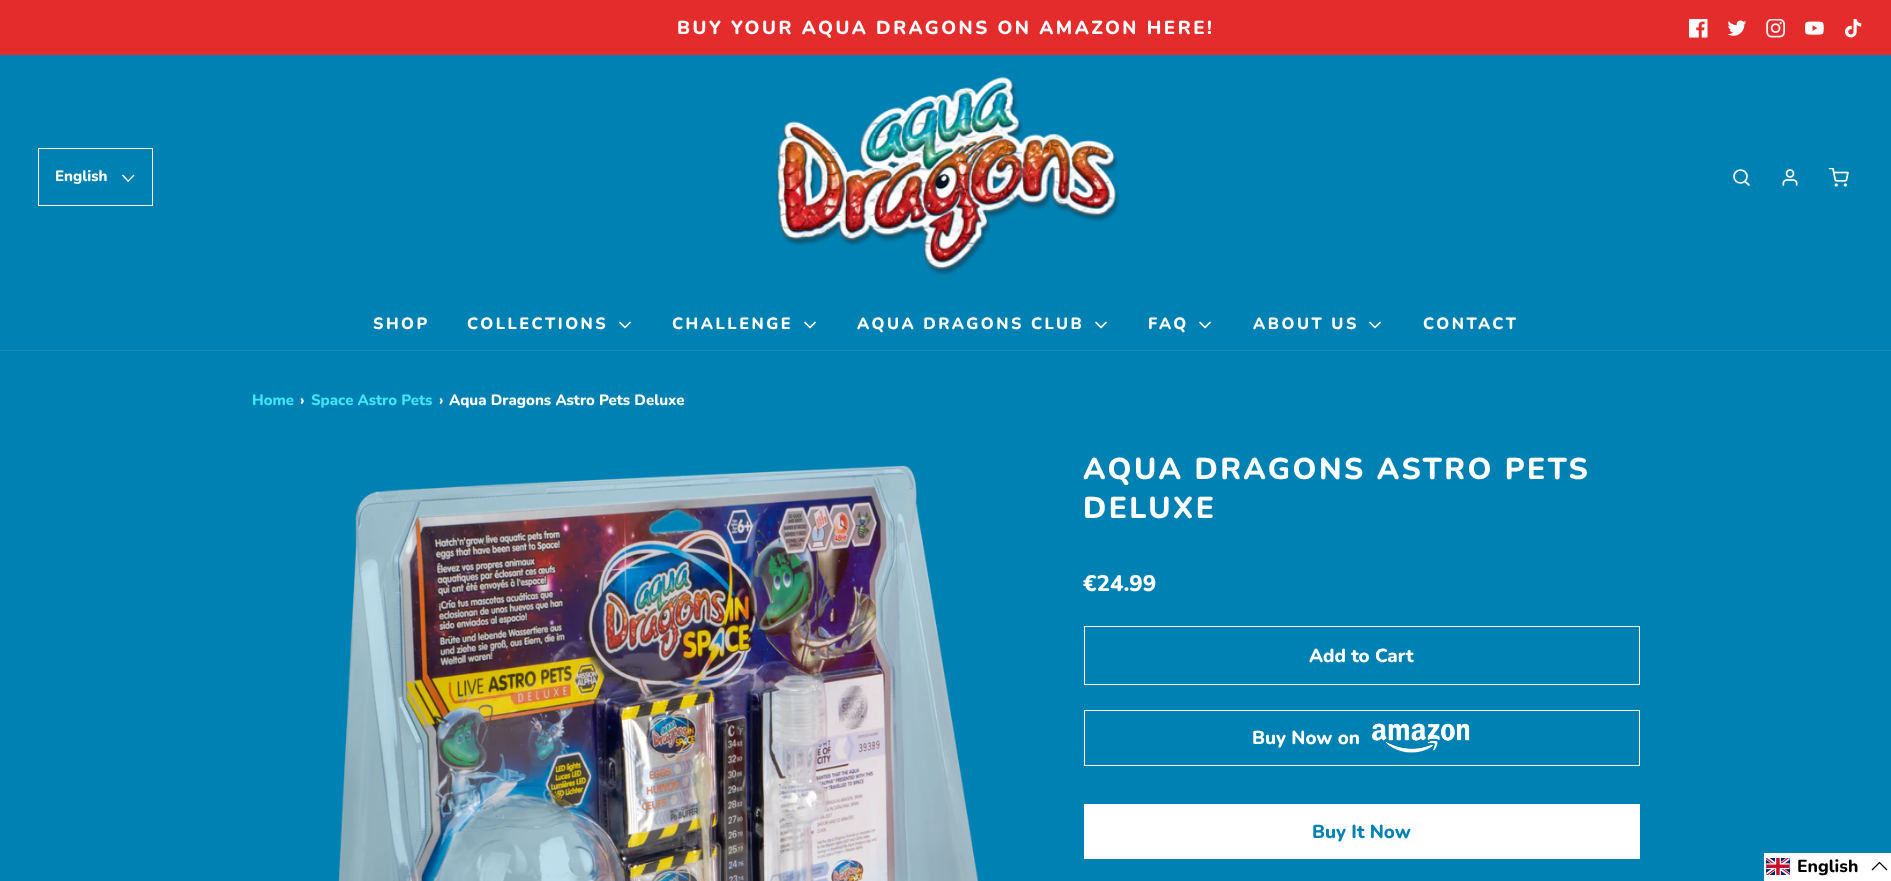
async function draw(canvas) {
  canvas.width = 1891;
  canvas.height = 881;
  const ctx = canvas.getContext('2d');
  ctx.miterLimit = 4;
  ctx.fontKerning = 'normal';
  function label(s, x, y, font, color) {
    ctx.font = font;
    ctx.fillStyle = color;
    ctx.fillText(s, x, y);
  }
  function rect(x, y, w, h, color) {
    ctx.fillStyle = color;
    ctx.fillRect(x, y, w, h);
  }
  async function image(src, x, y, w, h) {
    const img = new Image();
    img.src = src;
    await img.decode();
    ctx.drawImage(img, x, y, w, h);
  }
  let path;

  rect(0, 0, 1891, 881, '#0081b3');
  rect(0, 0, 1891, 55, '#e32c2b');
  ctx.letterSpacing = '2.5px';
  label('BUY YOUR AQUA DRAGONS ON AMAZON HERE!', 677, 34, '800 18.75px Nunito', '#fff');
  await image('assets/img1.png', 1689, 19, 19, 19);
  await image('assets/img2.png', 1728, 20, 18, 16);
  await image('assets/img3.png', 1766, 19, 19, 19);
  await image('assets/img4.png', 1805, 21, 19, 14);
  await image('assets/img5.png', 1845, 19, 17, 19);
  rect(0, 350, 1891, 1, '#1a8ebb');
  ctx.strokeStyle = '#fff';
  ctx.strokeRect(38.5, 148.5, 114, 57);
  ctx.letterSpacing = '0px';
  label('English', 55, 181, '800 15px Nunito', '#fff');
  path = new Path2D('M133.5 174.5L134.5 175.5L128 182L127.5 181Z');
  ctx.fill(path);
  path = new Path2D('M123 174.5L129 181L128 182L122 175.5Z');
  ctx.fill(path);
  await image('assets/img6.png', 775, 77, 345, 198);
  ctx.beginPath();
  ctx.arc(1740.5, 176.5, 6.5, 0, 2 * Math.PI);
  ctx.lineWidth = 1.7;
  ctx.stroke();
  path = new Path2D('M1749 185L1745 181.5');
  ctx.lineCap = 'round';
  ctx.lineJoin = 'round';
  ctx.stroke(path);
  await image('assets/img7.png', 1782, 169, 16, 17);
  await image('assets/img8.png', 1828, 168, 21, 19);
  ctx.letterSpacing = '2.5px';
  label('SHOP', 373, 329, '800 16.25px Nunito', '#fff');
  label('COLLECTIONS', 467, 329, '800 16.25px Nunito', '#fff');
  path = new Path2D('M620 322.5L625 327.5L630 322.5');
  ctx.stroke(path);
  label('CHALLENGE', 672, 329, '800 16.25px Nunito', '#fff');
  path = new Path2D('M805 322.5L810 327.5L815 322.5');
  ctx.stroke(path);
  label('AQUA DRAGONS CLUB', 857, 329, '800 16.25px Nunito', '#fff');
  path = new Path2D('M1096 322.5L1101 327.5L1106 322.5');
  ctx.stroke(path);
  label('FAQ', 1148, 329, '800 16.25px Nunito', '#fff');
  path = new Path2D('M1200 322.5L1205 327.5L1210 322.5');
  ctx.stroke(path);
  label('ABOUT US', 1253, 329, '800 16.25px Nunito', '#fff');
  path = new Path2D('M1370 322.5L1375 327.5L1380 322.5');
  ctx.stroke(path);
  label('CONTACT', 1423, 329, '800 16.25px Nunito', '#fff');
  ctx.letterSpacing = '0px';
  label('Home', 252, 405, '800 15px Nunito', '#40e6f7');
  label('›', 300, 405, '800 15px Nunito', '#fff');
  label('Space Astro Pets', 311, 405, '800 15px Nunito', '#40e6f7');
  label('›', 439, 405, '800 15px Nunito', '#fff');
  label('Aqua Dragons Astro Pets Deluxe', 449, 405, '800 15px Nunito', '#fff');
  await image('assets/img9.png', 338, 465, 641, 416);
  ctx.letterSpacing = '2.5px';
  label('AQUA DRAGONS ASTRO PETS', 1083, 479, '800 30px Nunito', '#fff');
  label('DELUXE', 1083, 518, '800 30px Nunito', '#fff');
  ctx.letterSpacing = '0px';
  label('€24.99', 1083, 591, '800 22.5px Nunito', '#fff');
  ctx.lineWidth = 1;
  ctx.lineJoin = 'miter';
  ctx.strokeRect(1084.5, 626.5, 555, 58);
  label('Add to Cart', 1309, 662, '800 18.75px Nunito', '#fff');
  ctx.strokeRect(1084.5, 710.5, 555, 55);
  label('Buy Now on', 1252, 744, '800 18.75px Nunito', '#fff');
  await image('assets/img10.png', 1371, 723, 99, 30);
  rect(1084, 804, 556, 55, '#fff');
  label('Buy It Now', 1312, 838, '800 18.75px Nunito', '#0081b3');
  rect(1764, 853, 127, 28, '#fff');
  await image('assets/img11.png', 1766, 858, 24, 17);
  label('English', 1797, 872, '800 17.5px Nunito', '#000');
  path = new Path2D('M1887 870L1879.5 862.5L1872 870');
  ctx.strokeStyle = '#000';
  ctx.lineWidth = 1.2;
  ctx.lineCap = 'butt';
  ctx.stroke(path);
}

draw(document.querySelector('canvas'));
